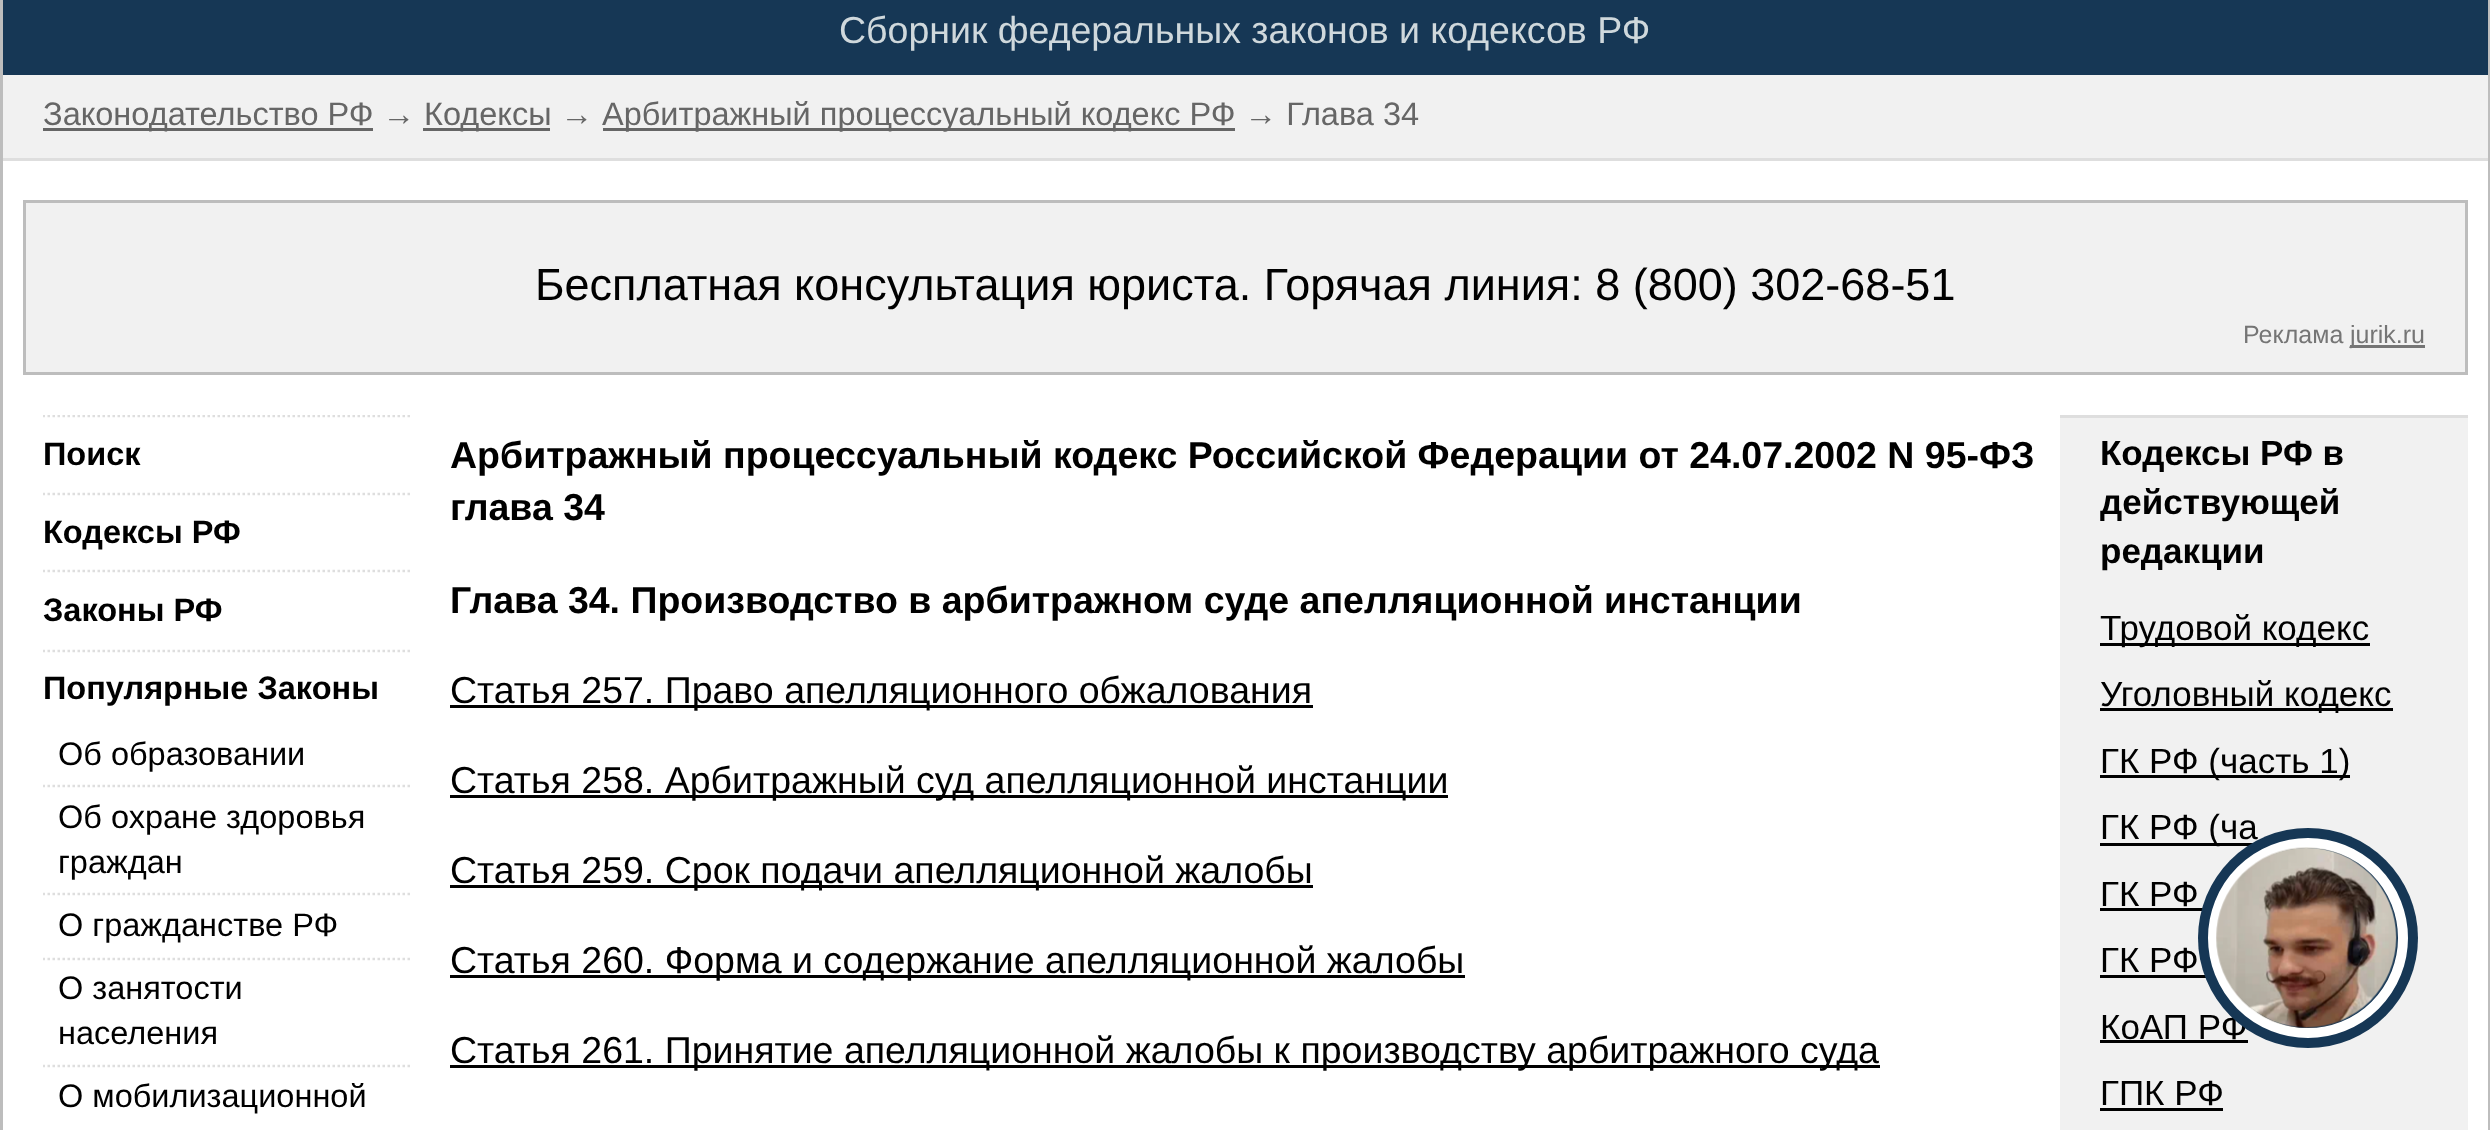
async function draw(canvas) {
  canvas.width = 2490;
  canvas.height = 1130;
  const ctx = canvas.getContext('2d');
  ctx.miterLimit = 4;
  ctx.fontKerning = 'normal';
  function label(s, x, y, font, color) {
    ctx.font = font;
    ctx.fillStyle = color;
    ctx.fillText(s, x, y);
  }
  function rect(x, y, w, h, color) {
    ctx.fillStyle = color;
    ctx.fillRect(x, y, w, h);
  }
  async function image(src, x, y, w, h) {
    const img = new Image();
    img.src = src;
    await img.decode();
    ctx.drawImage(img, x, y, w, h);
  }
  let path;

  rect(0, 0, 2490, 1130, '#fff');
  rect(2488, 0, 2, 1130, '#bdbdbd');
  rect(0, 0, 3, 1130, '#bdbdbd');
  rect(3, 0, 2485, 75, '#163755');
  label('Сборник федеральных законов и кодексов РФ', 839, 43, '37.5px Liberation Sans', '#cfd8dc');
  rect(3, 75, 2485, 83, '#f1f1f1');
  rect(3, 158, 2485, 3, '#dedede');
  rect(43, 128, 330, 3, '#666');
  label('Законодательство РФ →', 43, 125, '32.5px Liberation Sans', '#666');
  rect(423, 128, 127, 3, '#666');
  label('Кодексы →', 424, 125, '32.5px Liberation Sans', '#666');
  rect(603, 128, 632, 3, '#666');
  label('Арбитражный процессуальный кодекс РФ → Глава 34', 602, 125, '32.5px Liberation Sans', '#666');
  ctx.fillStyle = '#f1f1f1';
  ctx.beginPath();
  ctx.rect(24.5, 201.5, 2442, 172);
  ctx.fill();
  ctx.strokeStyle = '#bdbdbd';
  ctx.lineWidth = 3;
  ctx.stroke();
  label('Бесплатная консультация юриста. Горячая линия: 8 (800) 302-68-51', 535, 300, '45px Liberation Sans', '#000');
  label('Реклама', 2243, 343, '25px Liberation Sans', '#757575');
  rect(2350, 345, 75, 3, '#757575');
  label('jurik.ru', 2350, 343, '25px Liberation Sans', '#757575');
  ctx.save();
  ctx.beginPath();
  ctx.rect(43, 415, 367, 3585);
  ctx.clip();
  path = new Path2D('M42.5 416H410');
  ctx.strokeStyle = '#dedede';
  ctx.lineWidth = 2.5;
  ctx.setLineDash([2.5, 2.5]);
  ctx.stroke(path);
  ctx.restore();
  label('Поиск', 43, 465, 'bold 32.5px Liberation Sans', '#000');
  ctx.save();
  ctx.beginPath();
  ctx.rect(43, 415, 367, 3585);
  ctx.clip();
  path = new Path2D('M42.5 494H410');
  ctx.strokeStyle = '#dedede';
  ctx.lineWidth = 2.5;
  ctx.setLineDash([2.5, 2.5]);
  ctx.stroke(path);
  ctx.restore();
  label('Кодексы РФ', 43, 543, 'bold 32.5px Liberation Sans', '#000');
  ctx.save();
  ctx.beginPath();
  ctx.rect(43, 415, 367, 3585);
  ctx.clip();
  path = new Path2D('M42.5 571H410');
  ctx.strokeStyle = '#dedede';
  ctx.lineWidth = 2.5;
  ctx.setLineDash([2.5, 2.5]);
  ctx.stroke(path);
  ctx.restore();
  label('Законы РФ', 43, 621, 'bold 32.5px Liberation Sans', '#000');
  ctx.save();
  ctx.beginPath();
  ctx.rect(43, 415, 367, 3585);
  ctx.clip();
  path = new Path2D('M42.5 651H410');
  ctx.strokeStyle = '#dedede';
  ctx.lineWidth = 2.5;
  ctx.setLineDash([2.5, 2.5]);
  ctx.stroke(path);
  ctx.restore();
  label('Популярные Законы', 43, 699, 'bold 32.5px Liberation Sans', '#000');
  label('Об образовании', 58, 765, '32.5px Liberation Sans', '#000');
  ctx.save();
  ctx.beginPath();
  ctx.rect(43, 415, 367, 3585);
  ctx.clip();
  path = new Path2D('M42.5 786H410');
  ctx.strokeStyle = '#dedede';
  ctx.lineWidth = 2.5;
  ctx.setLineDash([2.5, 2.5]);
  ctx.stroke(path);
  ctx.restore();
  label('Об охране здоровья', 58, 828, '32.5px Liberation Sans', '#000');
  label('граждан', 58, 873, '32.5px Liberation Sans', '#000');
  ctx.save();
  ctx.beginPath();
  ctx.rect(43, 415, 367, 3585);
  ctx.clip();
  path = new Path2D('M42.5 894H410');
  ctx.strokeStyle = '#dedede';
  ctx.lineWidth = 2.5;
  ctx.setLineDash([2.5, 2.5]);
  ctx.stroke(path);
  ctx.restore();
  label('О гражданстве РФ', 58, 936, '32.5px Liberation Sans', '#000');
  ctx.save();
  ctx.beginPath();
  ctx.rect(43, 415, 367, 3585);
  ctx.clip();
  path = new Path2D('M42.5 959H410');
  ctx.strokeStyle = '#dedede';
  ctx.lineWidth = 2.5;
  ctx.setLineDash([2.5, 2.5]);
  ctx.stroke(path);
  ctx.restore();
  label('О занятости', 58, 999, '32.5px Liberation Sans', '#000');
  label('населения', 58, 1044, '32.5px Liberation Sans', '#000');
  ctx.save();
  ctx.beginPath();
  ctx.rect(43, 415, 367, 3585);
  ctx.clip();
  path = new Path2D('M42.5 1066H410');
  ctx.strokeStyle = '#dedede';
  ctx.lineWidth = 2.5;
  ctx.setLineDash([2.5, 2.5]);
  ctx.stroke(path);
  ctx.restore();
  label('О мобилизационной', 58, 1107, '32.5px Liberation Sans', '#000');
  label('Арбитражный процессуальный кодекс Российской Федерации от 24.07.2002 N 95-ФЗ', 450, 468, 'bold 37.5px Liberation Sans', '#000');
  label('глава 34', 450, 520, 'bold 37.5px Liberation Sans', '#000');
  label('Глава 34. Производство в арбитражном суде апелляционной инстанции', 450, 613, 'bold 37.5px Liberation Sans', '#000');
  rect(450, 705, 863, 3, '#000');
  label('Статья 257. Право апелляционного обжалования', 450, 703, '37.5px Liberation Sans', '#000');
  rect(450, 795, 998, 3, '#000');
  label('Статья 258. Арбитражный суд апелляционной инстанции', 450, 793, '37.5px Liberation Sans', '#000');
  rect(450, 885, 863, 3, '#000');
  label('Статья 259. Срок подачи апелляционной жалобы', 450, 883, '37.5px Liberation Sans', '#000');
  rect(450, 975, 1015, 3, '#000');
  label('Статья 260. Форма и содержание апелляционной жалобы', 450, 973, '37.5px Liberation Sans', '#000');
  rect(450, 1065, 1430, 3, '#000');
  label('Статья 261. Принятие апелляционной жалобы к производству арбитражного суда', 450, 1063, '37.5px Liberation Sans', '#000');
  rect(2060, 418, 408, 712, '#f1f1f1');
  rect(2060, 415, 408, 3, '#dedede');
  label('Кодексы РФ в', 2100, 465, 'bold 35px Liberation Sans', '#000');
  label('действующей', 2100, 514, 'bold 35px Liberation Sans', '#000');
  label('редакции', 2100, 563, 'bold 35px Liberation Sans', '#000');
  rect(2100, 643, 270, 3, '#000');
  label('Трудовой кодекс', 2100, 640, '35px Liberation Sans', '#000');
  rect(2100, 708, 293, 3, '#000');
  label('Уголовный кодекс', 2100, 706, '35px Liberation Sans', '#000');
  rect(2100, 775, 250, 3, '#000');
  label('ГК РФ (часть 1)', 2100, 773, '35px Liberation Sans', '#000');
  rect(2100, 843, 153, 3, '#000');
  label('ГК РФ (ча', 2100, 839, '35px Liberation Sans', '#000');
  label('ГК РФ', 2100, 906, '35px Liberation Sans', '#000');
  rect(2100, 908, 103, 3, '#000');
  label('ГК РФ', 2100, 972, '35px Liberation Sans', '#000');
  rect(2100, 975, 106, 3, '#000');
  label('КоАП РФ', 2100, 1039, '35px Liberation Sans', '#000');
  rect(2100, 1040, 148, 3, '#000');
  label('ГПК РФ', 2100, 1105, '35px Liberation Sans', '#000');
  rect(2100, 1108, 123, 3, '#000');
  ctx.fillStyle = '#163755';
  ctx.beginPath();
  ctx.arc(2308, 938, 110, 0, 2 * Math.PI);
  ctx.fill();
  ctx.beginPath();
  ctx.arc(2308, 938, 95, 0, 2 * Math.PI);
  ctx.strokeStyle = '#fff';
  ctx.lineWidth = 10;
  ctx.stroke();
  await image('assets/img1.png', 2216, 847, 181, 181);
}

draw(document.querySelector('canvas'));
